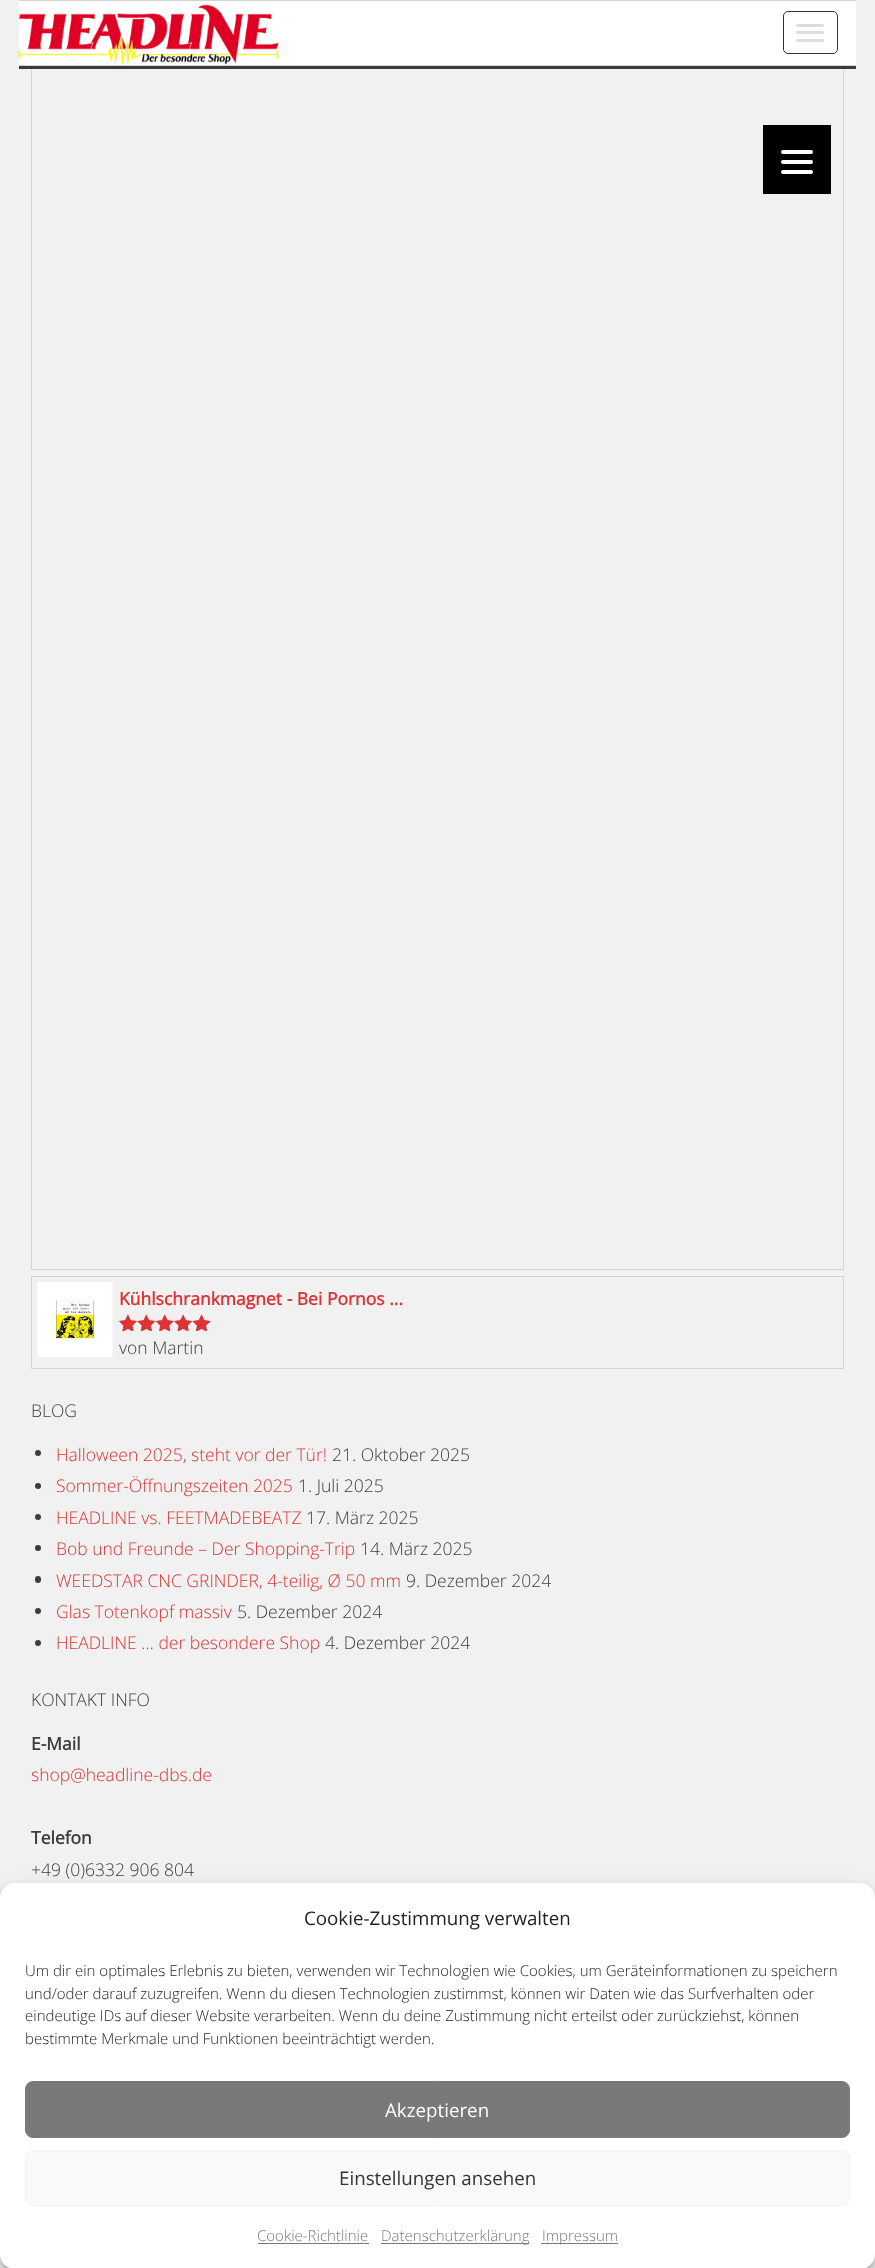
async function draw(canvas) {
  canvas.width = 875;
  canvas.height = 2268;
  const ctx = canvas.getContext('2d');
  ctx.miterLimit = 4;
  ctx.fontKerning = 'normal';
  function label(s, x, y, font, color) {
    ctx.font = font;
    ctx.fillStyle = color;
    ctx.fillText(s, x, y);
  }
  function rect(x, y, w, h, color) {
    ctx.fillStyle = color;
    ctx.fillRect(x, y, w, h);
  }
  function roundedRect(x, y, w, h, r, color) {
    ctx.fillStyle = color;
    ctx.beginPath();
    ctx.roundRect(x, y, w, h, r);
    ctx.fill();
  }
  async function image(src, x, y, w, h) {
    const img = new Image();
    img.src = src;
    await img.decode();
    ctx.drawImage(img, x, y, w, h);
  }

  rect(0, 0, 875, 2268, '#fff');
  rect(0, 0, 875, 1898, '#f1f1f1');
  ctx.strokeStyle = '#d3d3d3';
  ctx.strokeRect(31.5, -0.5, 812, 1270);
  rect(763, 125, 68, 69, '#000');
  roundedRect(781, 160, 32, 4, 2, '#fff');
  roundedRect(781, 150, 32, 4, 2, '#fff');
  roundedRect(781, 170, 32, 4, 2, '#fff');
  rect(19, 1, 837, 64, '#fff');
  rect(19, 66, 837, 3, '#3e3b3b');
  rect(19, 0, 837, 1, '#d3d3d3');
  rect(19, 65, 837, 1, '#d3d3d3');
  await image('assets/img1.png', 18, 4, 261, 61);
  ctx.beginPath();
  ctx.roundRect(783.5, 11.5, 54, 42, 4.5);
  ctx.strokeStyle = '#333';
  ctx.stroke();
  roundedRect(796, 24, 28, 3, 1.5, '#ddd');
  roundedRect(796, 31, 28, 3, 1.5, '#ddd');
  roundedRect(796, 39, 28, 3, 1.5, '#ddd');
  ctx.strokeStyle = '#d3d3d3';
  ctx.strokeRect(31.5, 1276.5, 812, 92);
  await image('assets/img2.png', 37, 1282, 76, 75);
  label('Kühlschrankmagnet - Bei Pornos ...', 119, 1305, 'bold 17.5px Open Sans', '#d33');
  await image('assets/img3.png', 119, 1314, 92, 17);
  await image('assets/img4.png', 119, 1314, 92, 17);
  label('von Martin', 119, 1354, '300 17.5px Open Sans', '#3e3b3b');
  label('BLOG', 31, 1417, '300 17.5px Open Sans', '#3e3b3b');
  ctx.beginPath();
  ctx.arc(38, 1453, 3, 0, 2 * Math.PI);
  ctx.fill();
  label('Halloween 2025, steht vor der Tür!', 56, 1461, '300 17.5px Open Sans', '#d33');
  label('21. Oktober 2025', 332, 1461, '300 17.5px Open Sans', '#3e3b3b');
  ctx.beginPath();
  ctx.arc(38, 1486, 3, 0, 2 * Math.PI);
  ctx.fill();
  label('Sommer-Öffnungszeiten 2025', 56, 1492, '300 17.5px Open Sans', '#d33');
  label('1. Juli 2025', 298, 1492, '300 17.5px Open Sans', '#3e3b3b');
  ctx.beginPath();
  ctx.arc(38, 1517, 3, 0, 2 * Math.PI);
  ctx.fill();
  label('HEADLINE vs. FEETMADEBEATZ', 56, 1524, '300 17.5px Open Sans', '#d33');
  label('17. März 2025', 306, 1524, '300 17.5px Open Sans', '#3e3b3b');
  ctx.beginPath();
  ctx.arc(38, 1548, 3, 0, 2 * Math.PI);
  ctx.fill();
  label('Bob und Freunde – Der Shopping-Trip', 56, 1555, '300 17.5px Open Sans', '#d33');
  label('14. März 2025', 360, 1555, '300 17.5px Open Sans', '#3e3b3b');
  roundedRect(35, 1576, 6, 7, 3, '#3e3b3b');
  label('WEEDSTAR CNC GRINDER, 4-teilig, Ø 50 mm', 56, 1587, '300 17.5px Open Sans', '#d33');
  label('9. Dezember 2024', 406, 1587, '300 17.5px Open Sans', '#3e3b3b');
  ctx.beginPath();
  ctx.arc(38, 1611, 3, 0, 2 * Math.PI);
  ctx.fill();
  label('Glas Totenkopf massiv', 56, 1618, '300 17.5px Open Sans', '#d33');
  label('5. Dezember 2024', 237, 1618, '300 17.5px Open Sans', '#3e3b3b');
  ctx.beginPath();
  ctx.arc(38, 1643, 3, 0, 2 * Math.PI);
  ctx.fill();
  label('HEADLINE … der besondere Shop', 56, 1649, '300 17.5px Open Sans', '#d33');
  label('4. Dezember 2024', 325, 1649, '300 17.5px Open Sans', '#3e3b3b');
  label('KONTAKT INFO', 31, 1706, '300 17.5px Open Sans', '#3e3b3b');
  label('E-Mail', 31, 1750, 'bold 17.5px Open Sans', '#3e3b3b');
  label('shop@headline-dbs.de', 31, 1781, '300 17.5px Open Sans', '#d33');
  label('Telefon', 31, 1844, 'bold 17.5px Open Sans', '#3e3b3b');
  label('+49 (0)6332 906 804', 31, 1876, '300 17.5px Open Sans', '#3e3b3b');
  ctx.fillStyle = '#0000003b';
  ctx.filter = 'blur(4px)';
  ctx.beginPath();
  ctx.roundRect(0, 1890, 875, 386, 15);
  ctx.fill();
  ctx.filter = 'none';
  ctx.fillStyle = '#00000030';
  ctx.filter = 'blur(12.5px)';
  ctx.beginPath();
  ctx.roundRect(0, 1895, 875, 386, 15);
  ctx.fill();
  ctx.filter = 'none';
  roundedRect(0, 1883, 875, 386, 15, '#fff');
  label('Cookie-Zustimmung verwalten', 304, 1925, '18.75px Open Sans', '#222');
  label('Um dir ein optimales Erlebnis zu bieten, verwenden wir Technologien wie Cookies, um Geräteinformationen zu speichern', 25, 1976, '300 15px Open Sans', '#222');
  label('und/oder darauf zuzugreifen. Wenn du diesen Technologien zustimmst, können wir Daten wie das Surfverhalten oder', 25, 1999, '300 15px Open Sans', '#222');
  label('eindeutige IDs auf dieser Website verarbeiten. Wenn du deine Zustimmung nicht erteilst oder zurückziehst, können', 25, 2021, '300 15px Open Sans', '#222');
  label('bestimmte Merkmale und Funktionen beeinträchtigt werden.', 25, 2044, '300 15px Open Sans', '#222');
  ctx.fillStyle = '#7a7979';
  ctx.beginPath();
  ctx.roundRect(25.5, 2081.5, 824, 56, 7.5);
  ctx.fill();
  ctx.strokeStyle = '#7a7979';
  ctx.stroke();
  label('Akzeptieren', 385, 2117, '18.75px Open Sans', '#fff');
  ctx.fillStyle = '#f9f9f9';
  ctx.beginPath();
  ctx.roundRect(25.5, 2150.5, 824, 55, 7.5);
  ctx.fill();
  ctx.strokeStyle = '#f2f2f2';
  ctx.stroke();
  label('Einstellungen ansehen', 339, 2185, '18.75px Open Sans', '#333');
  label('Cookie-Richtlinie', 257, 2241, '300 15px Open Sans', '#7a7979');
  rect(258, 2243, 111, 1, '#7a7979');
  rect(381, 2243, 148, 1, '#7a7979');
  label('Datenschutzerklärung', 381, 2241, '300 15px Open Sans', '#7a7979');
  rect(541, 2243, 77, 1, '#7a7979');
  label('Impressum', 542, 2241, '300 15px Open Sans', '#7a7979');
}

draw(document.querySelector('canvas'));
